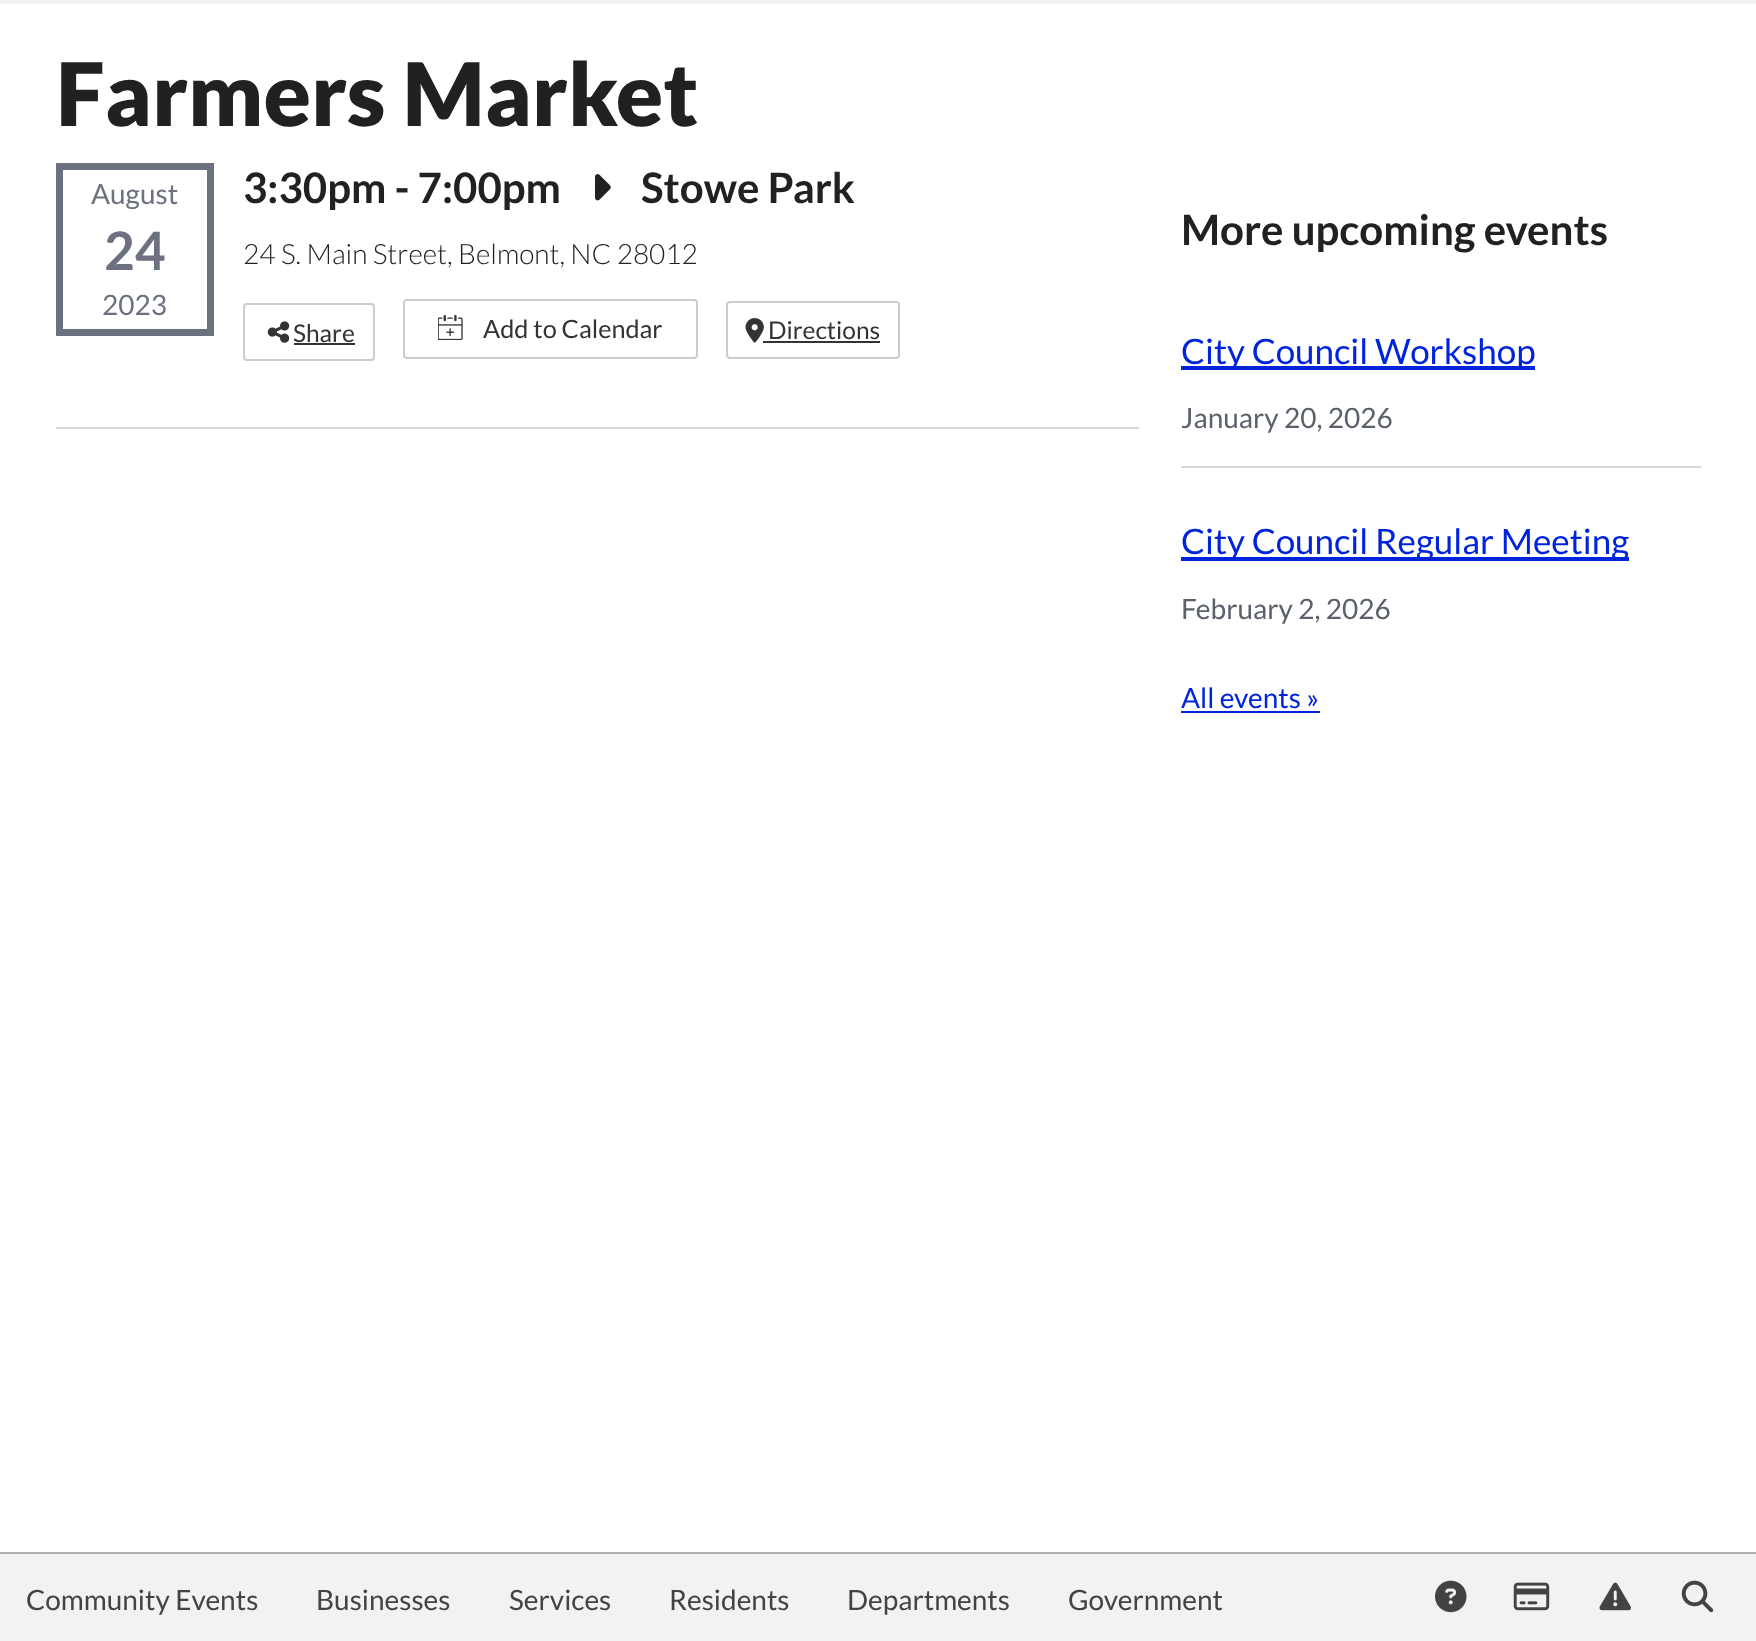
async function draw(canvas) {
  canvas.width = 1756;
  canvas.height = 1641;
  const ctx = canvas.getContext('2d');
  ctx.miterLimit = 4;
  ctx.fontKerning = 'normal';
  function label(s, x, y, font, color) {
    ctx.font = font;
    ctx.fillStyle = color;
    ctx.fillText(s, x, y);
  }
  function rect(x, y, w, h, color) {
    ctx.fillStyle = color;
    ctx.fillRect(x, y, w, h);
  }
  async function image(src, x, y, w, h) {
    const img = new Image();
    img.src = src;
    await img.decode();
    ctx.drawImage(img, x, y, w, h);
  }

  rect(0, 0, 1756, 1641, '#fff');
  label('Farmers Market', 56, 126, '900 87.5px Lato', '#212121');
  ctx.strokeStyle = '#6c717f';
  ctx.lineWidth = 7;
  ctx.strokeRect(59.5, 166.5, 151, 166);
  label('August', 91, 204, '28px Lato', '#6c717f');
  label('24', 104, 270, 'bold 53px Lato', '#6c717f');
  label('2023', 102, 315, '28px Lato', '#6c717f');
  label('3:30pm - 7:00pm', 243, 203, 'bold 42px Lato', '#212121');
  await image('assets/img1.png', 595, 174, 16, 27);
  label('Stowe Park', 641, 203, 'bold 42px Lato', '#212121');
  label('24 S. Main Street, Belmont, NC 28012', 243, 264, '300 28px Lato', '#212121');
  ctx.beginPath();
  ctx.roundRect(244, 304, 130, 56, 3);
  ctx.strokeStyle = '#ccc';
  ctx.lineWidth = 2;
  ctx.stroke();
  await image('assets/img2.png', 267, 321, 23, 22);
  label('Share', 293, 342, '24.5px Lato', '#333');
  rect(294, 343, 61, 2, '#333');
  ctx.beginPath();
  ctx.roundRect(404, 300, 293, 58, 3);
  ctx.stroke();
  await image('assets/img3.png', 438, 315, 25, 25);
  label('Add to Calendar', 483, 338, '25.25px Lato', '#333');
  ctx.beginPath();
  ctx.roundRect(727, 302, 172, 56, 3);
  ctx.stroke();
  await image('assets/img4.png', 745, 318, 19, 25);
  label('Directions', 768, 339, '24.5px Lato', '#333');
  rect(763, 341, 117, 2, '#333');
  rect(56, 427, 1083, 2, '#d6d7d9');
  label('More upcoming events', 1181, 245, 'bold 42px Lato', '#212121');
  rect(1181, 366, 354, 4, '#0024db');
  label('City Council Workshop', 1181, 364, '35px Lato', '#0024db');
  label('January 20, 2026', 1181, 428, '28px Lato', '#5b616b');
  rect(1181, 466, 520, 2, '#d6d7d9');
  rect(1181, 557, 448, 4, '#0024db');
  label('City Council Regular Meeting', 1181, 554, '35px Lato', '#0024db');
  label('February 2, 2026', 1181, 619, '28px Lato', '#5b616b');
  label('All events »', 1181, 708, '28px Lato', '#0024db');
  rect(1181, 711, 139, 2, '#0024db');
  rect(0, 0, 1756, 4, '#f2f2f2');
  rect(0, 1554, 1756, 87, '#f2f2f2');
  rect(0, 1552, 1756, 2, '#aeb0b5');
  label('Community Events', 26, 1610, '28px Lato', '#434343');
  label('Businesses', 316, 1610, '28px Lato', '#434343');
  label('Services', 509, 1610, '28px Lato', '#434343');
  label('Residents', 669, 1610, '28px Lato', '#434343');
  label('Departments', 847, 1610, '28px Lato', '#434343');
  label('Government', 1068, 1610, '28px Lato', '#434343');
  await image('assets/img5.png', 1435, 1580, 32, 33);
  await image('assets/img6.png', 1513, 1582, 37, 29);
  await image('assets/img7.png', 1599, 1582, 32, 29);
  await image('assets/img8.png', 1681, 1580, 33, 33);
}

draw(document.querySelector('canvas'));
